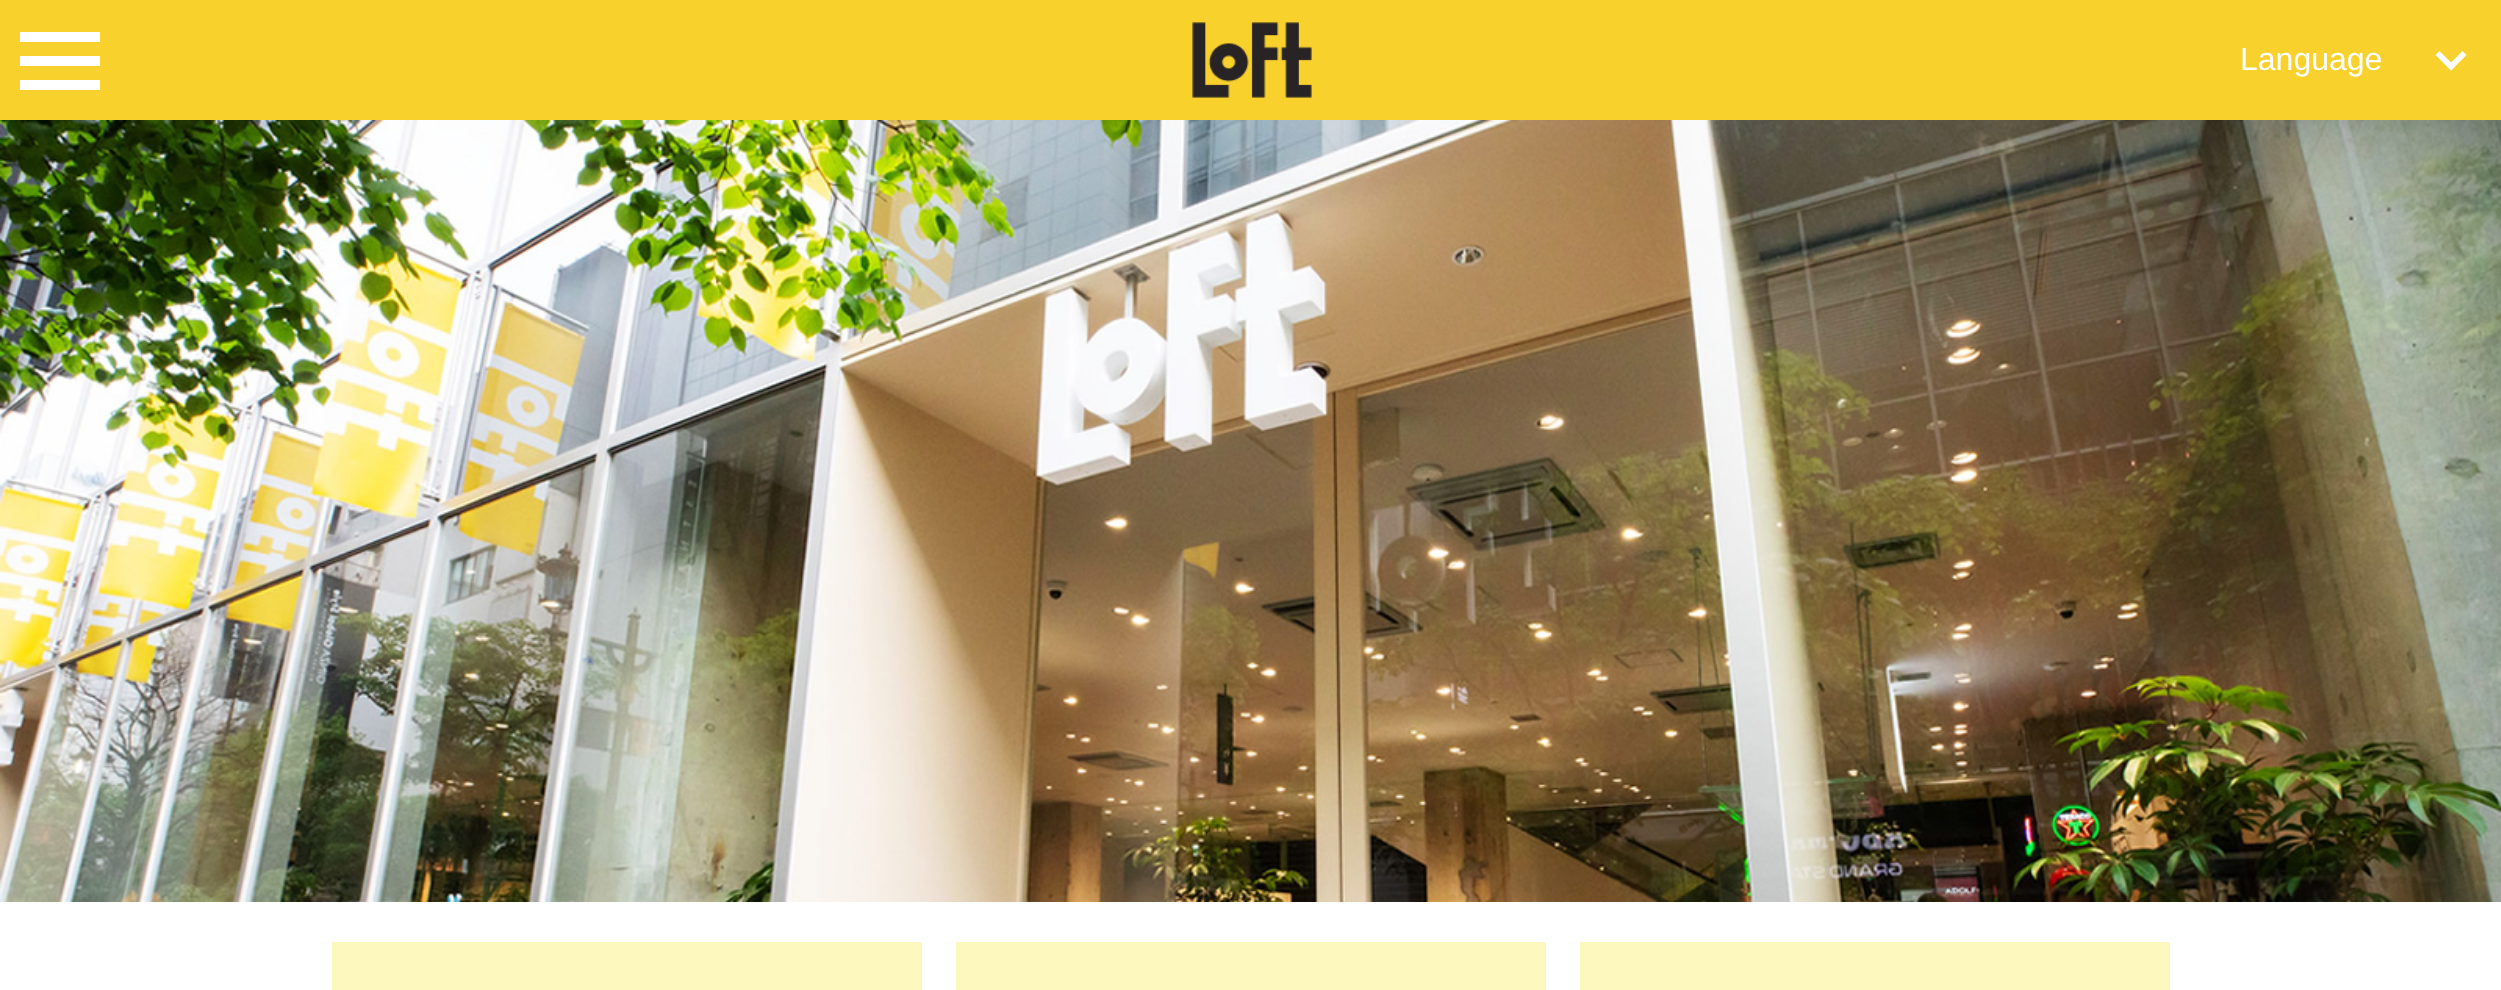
async function draw(canvas) {
  canvas.width = 2501;
  canvas.height = 990;
  const ctx = canvas.getContext('2d');
  ctx.miterLimit = 4;
  ctx.fontKerning = 'normal';
  function label(s, x, y, font, color) {
    ctx.font = font;
    ctx.fillStyle = color;
    ctx.fillText(s, x, y);
  }
  function rect(x, y, w, h, color) {
    ctx.fillStyle = color;
    ctx.fillRect(x, y, w, h);
  }
  async function image(src, x, y, w, h) {
    const img = new Image();
    img.src = src;
    await img.decode();
    ctx.drawImage(img, x, y, w, h);
  }
  let path;

  rect(0, 0, 2501, 990, '#fff');
  rect(0, 0, 2501, 120, '#f8d12c');
  rect(20, 32, 80, 10, '#fff');
  rect(20, 56, 80, 10, '#fff');
  rect(20, 80, 80, 10, '#fff');
  await image('assets/img1.png', 1192, 22, 120, 76);
  label('Language', 2240, 70, '32px Liberation Sans', '#fff');
  path = new Path2D('M2466.5 55L2451 70.5L2447 66.5L2462.5 51Z');
  ctx.fill(path);
  path = new Path2D('M2455 66.5L2451 70.5L2435.5 55L2439.5 51Z');
  ctx.fill(path);
  await image('assets/img2.png', 0, 120, 2501, 782);
  rect(332, 942, 590, 48, '#fcf8be');
  rect(956, 942, 590, 48, '#fcf8be');
  rect(1580, 942, 590, 48, '#fcf8be');
}

draw(document.querySelector('canvas'));
